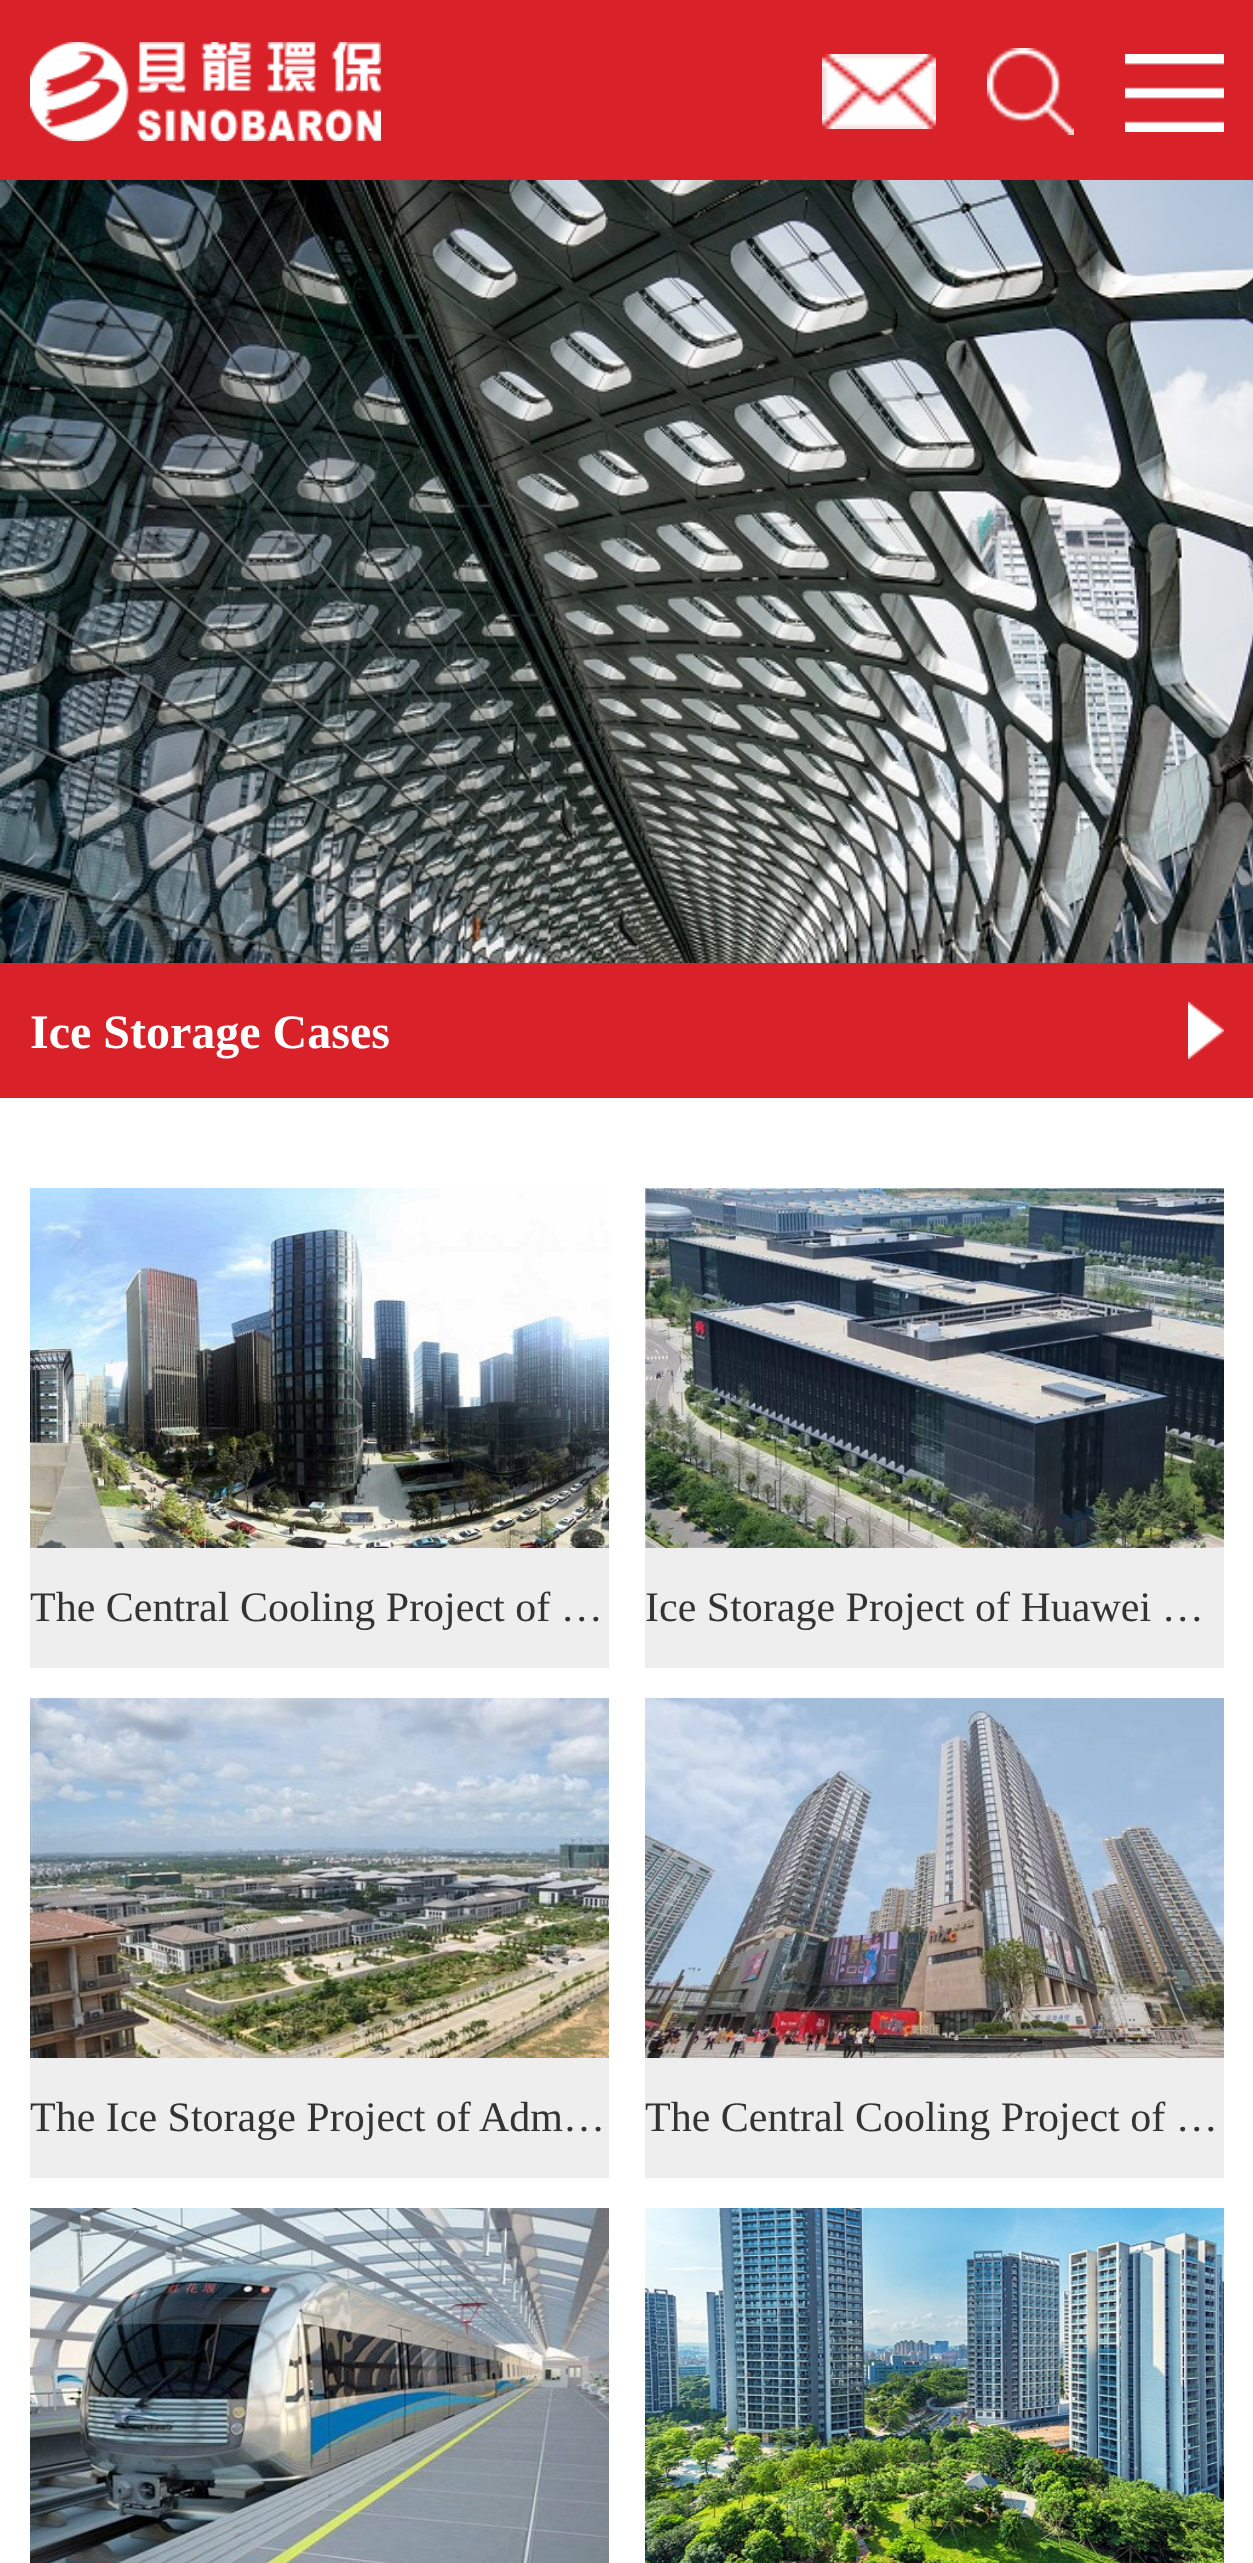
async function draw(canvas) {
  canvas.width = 1253;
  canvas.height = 2563;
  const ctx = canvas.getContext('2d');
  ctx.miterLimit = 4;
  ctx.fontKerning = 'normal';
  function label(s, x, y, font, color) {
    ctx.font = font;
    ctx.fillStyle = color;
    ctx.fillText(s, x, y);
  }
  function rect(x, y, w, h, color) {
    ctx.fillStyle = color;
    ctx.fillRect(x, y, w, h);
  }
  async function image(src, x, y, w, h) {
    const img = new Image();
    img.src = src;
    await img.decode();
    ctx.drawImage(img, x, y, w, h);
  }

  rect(0, 0, 1253, 2563, '#fff');
  rect(0, 0, 1253, 180, '#d82128');
  await image('assets/img1.png', 30, 42, 351, 99);
  await image('assets/img2.png', 822, 54, 114, 75);
  await image('assets/img3.png', 987, 48, 87, 87);
  await image('assets/img4.png', 1125, 54, 99, 78);
  await image('assets/img5.png', 0, 180, 1253, 783);
  rect(0, 963, 1253, 135, '#d82128');
  await image('assets/img6.png', 1188, 1002, 36, 57);
  label('Ice Storage Cases', 30, 1048, 'bold 48px Liberation Serif', '#fff');
  rect(30, 1548, 579, 120, '#eee');
  await image('assets/img7.png', 30, 1188, 579, 360);
  label('The Central Cooling Project of …', 30, 1621, '42px Liberation Serif', '#333');
  rect(645, 1548, 579, 120, '#eee');
  await image('assets/img8.png', 645, 1188, 579, 360);
  label('Ice Storage Project of Huawei …', 645, 1621, '42px Liberation Serif', '#333');
  rect(30, 2058, 579, 120, '#eee');
  await image('assets/img9.png', 30, 1698, 579, 360);
  label('The Ice Storage Project of Adm…', 30, 2131, '42px Liberation Serif', '#333');
  rect(645, 2058, 579, 120, '#eee');
  await image('assets/img10.png', 645, 1698, 579, 360);
  label('The Central Cooling Project of …', 645, 2131, '42px Liberation Serif', '#333');
  await image('assets/img11.png', 30, 2208, 579, 355);
  await image('assets/img12.png', 645, 2208, 579, 355);
}

draw(document.querySelector('canvas'));
